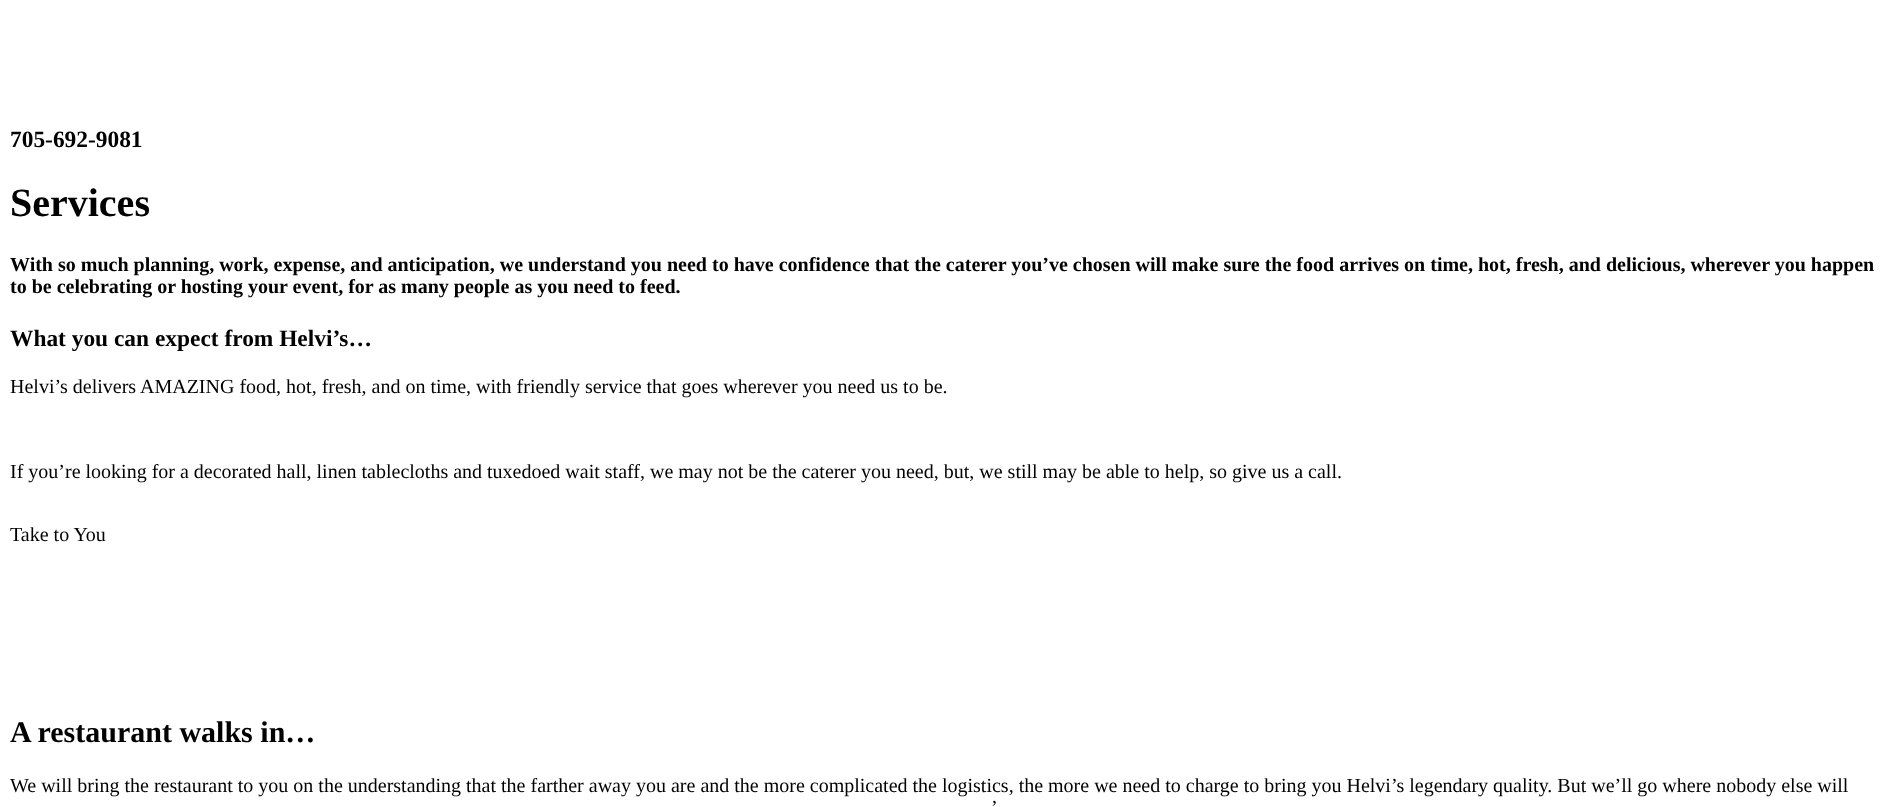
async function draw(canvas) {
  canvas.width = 1895;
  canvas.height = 807;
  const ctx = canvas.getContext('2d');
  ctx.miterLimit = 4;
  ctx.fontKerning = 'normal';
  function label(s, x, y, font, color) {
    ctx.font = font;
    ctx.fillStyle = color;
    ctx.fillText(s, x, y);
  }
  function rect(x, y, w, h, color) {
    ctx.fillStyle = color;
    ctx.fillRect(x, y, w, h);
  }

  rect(0, 0, 1895, 807, '#fff');
  label('705-692-9081', 10, 147, 'bold 23.4px Liberation Serif', '#000');
  label('Services', 10, 216, 'bold 40px Liberation Serif', '#000');
  label('With so much planning, work, expense, and anticipation, we understand you need to have confidence that the caterer you’ve chosen will make sure the food arrives on time, hot, fresh, and delicious, wherever you happen', 10, 271, 'bold 20px Liberation Serif', '#000');
  label('to be celebrating or hosting your event, for as many people as you need to feed.', 10, 293, 'bold 20px Liberation Serif', '#000');
  label('What you can expect from Helvi’s…', 10, 346, 'bold 23.4px Liberation Serif', '#000');
  label('Helvi’s delivers AMAZING food, hot, fresh, and on time, with friendly service that goes wherever you need us to be.', 10, 393, '20px Liberation Serif', '#000');
  label('If you’re looking for a decorated hall, linen tablecloths and tuxedoed wait staff, we may not be the caterer you need, but, we still may be able to help, so give us a call.', 10, 478, '20px Liberation Serif', '#000');
  label('Take to You', 10, 541, '20px Liberation Serif', '#000');
  label('A restaurant walks in…', 10, 742, 'bold 30px Liberation Serif', '#000');
  label('We will bring the restaurant to you on the understanding that the farther away you are and the more complicated the logistics, the more we need to charge to bring you Helvi’s legendary quality. But we’ll go where nobody else will', 10, 792, '20px Liberation Serif', '#000');
  label('’', 991, 814, '20px Liberation Serif', '#000');
}

draw(document.querySelector('canvas'));
